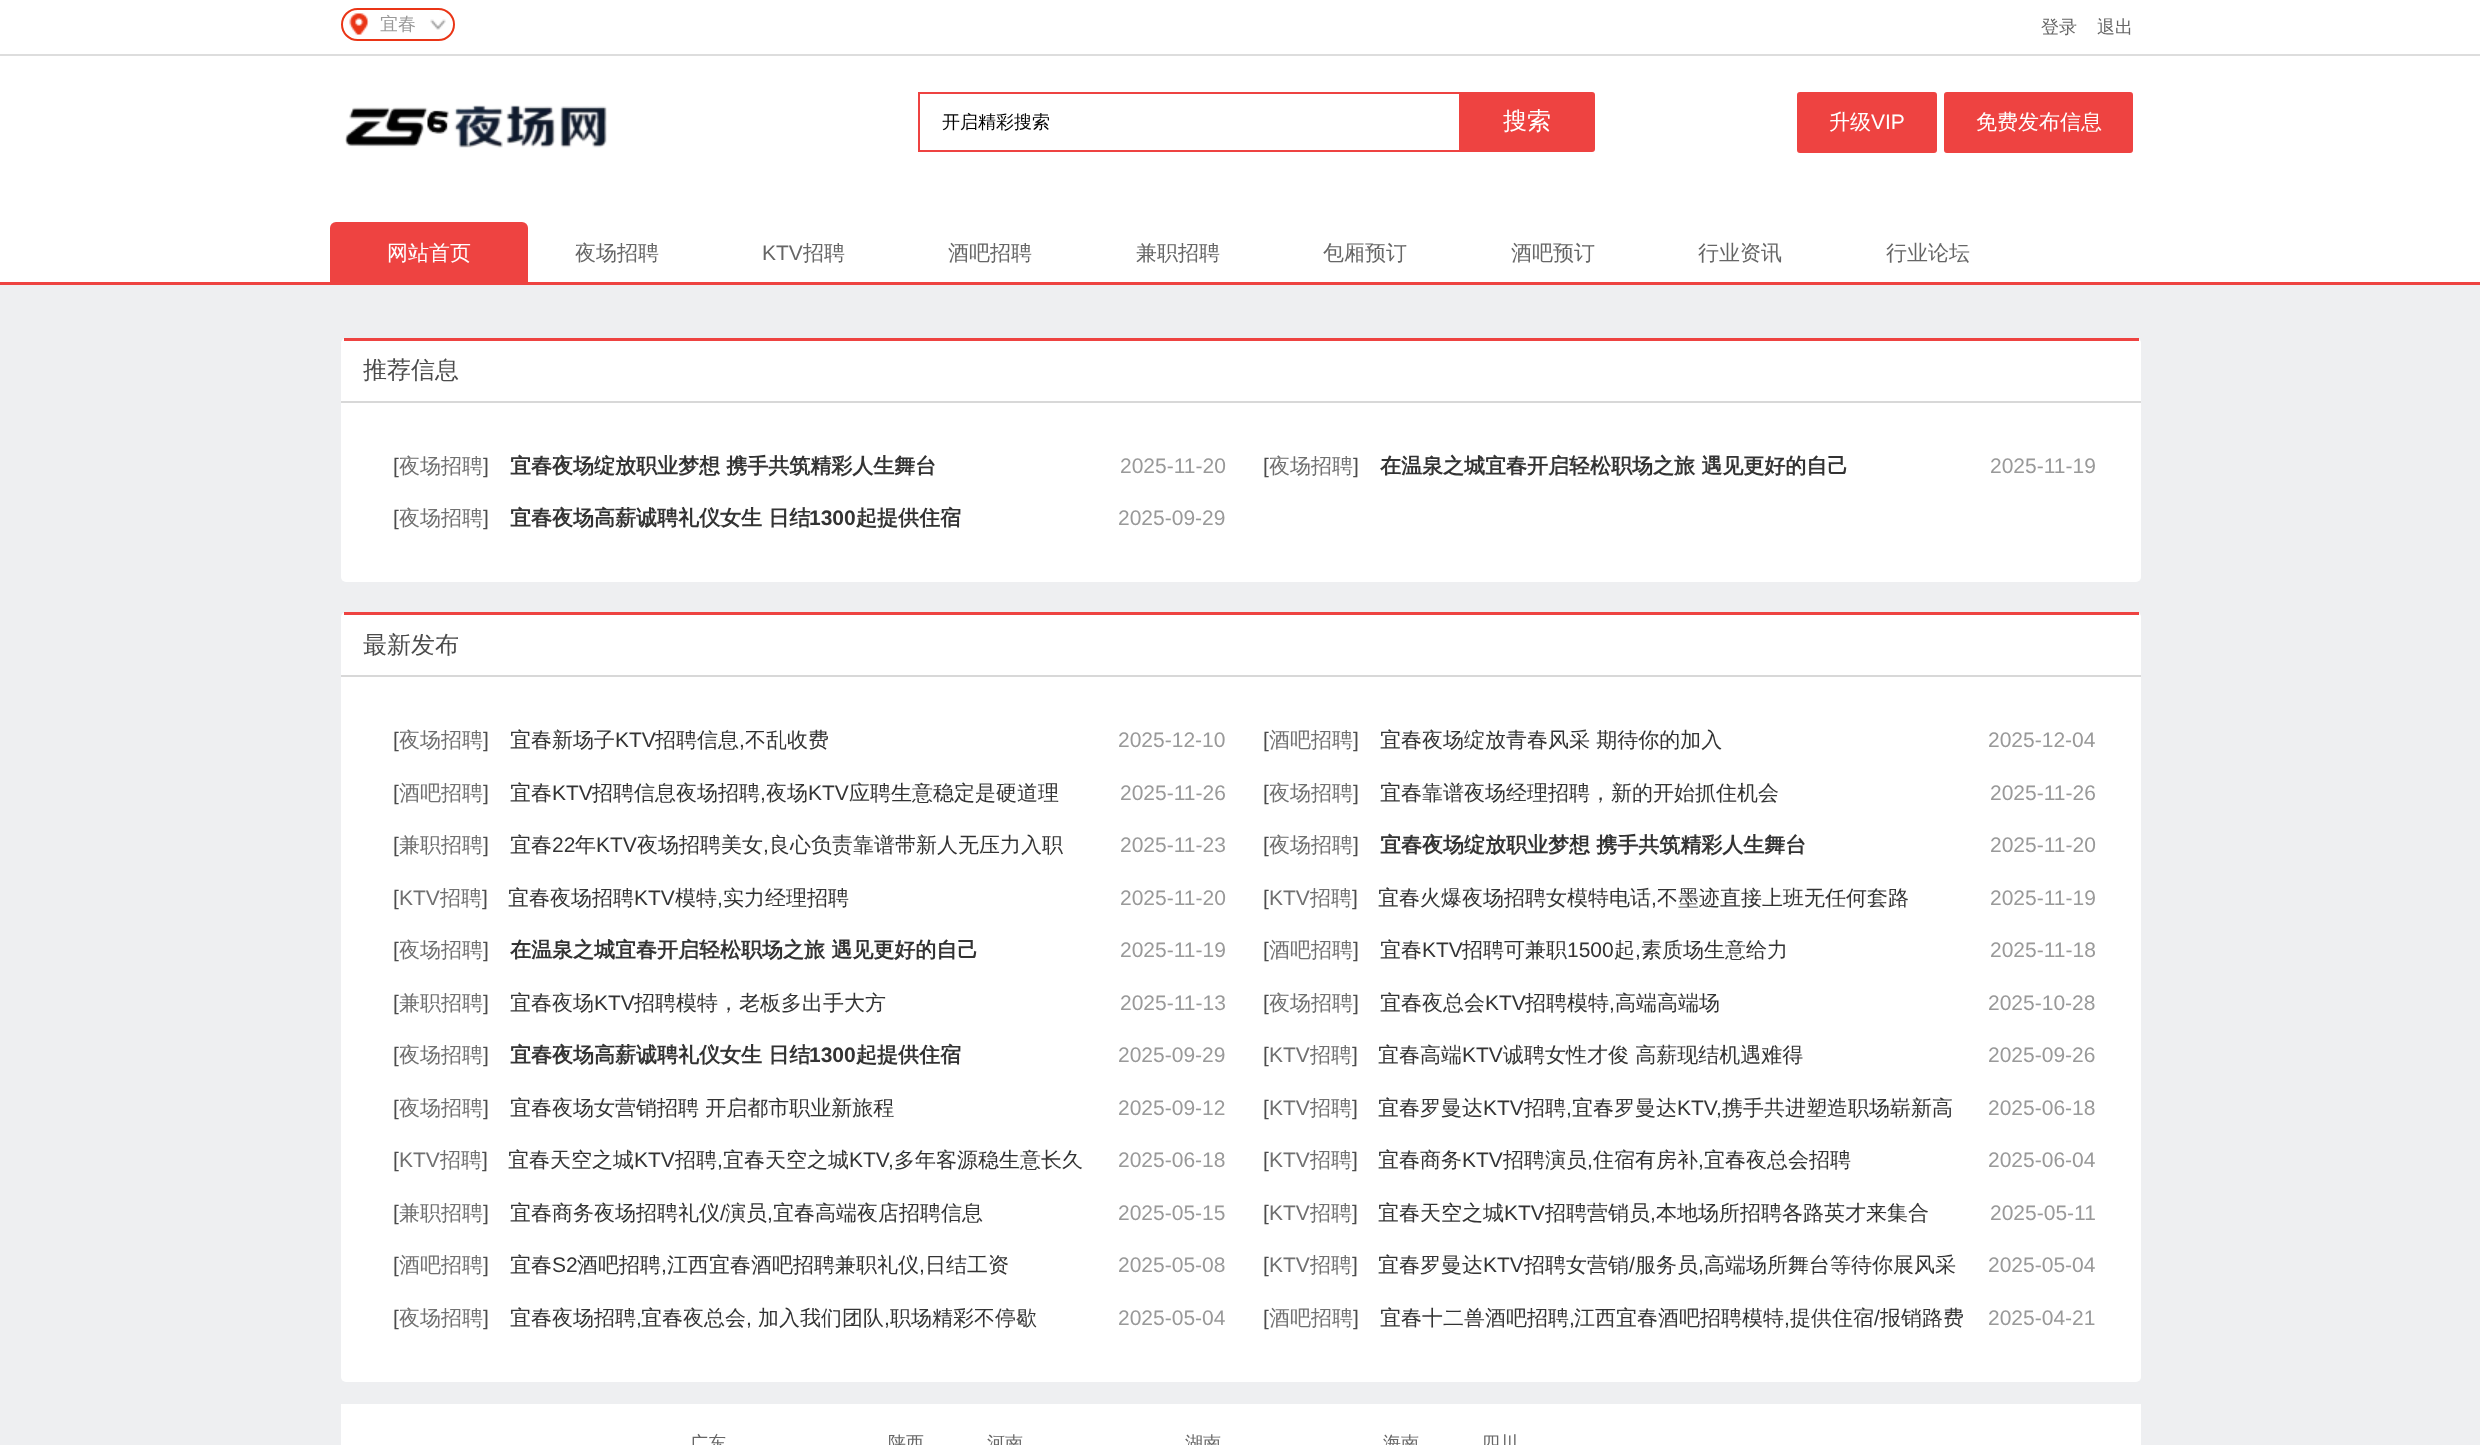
async function draw(canvas) {
  canvas.width = 2480;
  canvas.height = 1445;
  const ctx = canvas.getContext('2d');
  ctx.miterLimit = 4;
  ctx.fontKerning = 'normal';
  function label(s, x, y, font, color) {
    ctx.font = font;
    ctx.fillStyle = color;
    ctx.fillText(s, x, y);
  }
  function rect(x, y, w, h, color) {
    ctx.fillStyle = color;
    ctx.fillRect(x, y, w, h);
  }
  function roundedRect(x, y, w, h, r, color) {
    ctx.fillStyle = color;
    ctx.beginPath();
    ctx.roundRect(x, y, w, h, r);
    ctx.fill();
  }
  async function image(src, x, y, w, h) {
    const img = new Image();
    img.src = src;
    await img.decode();
    ctx.drawImage(img, x, y, w, h);
  }

  rect(0, 0, 2480, 1445, '#eeeff1');
  rect(0, 0, 2480, 222, '#fff');
  rect(0, 54, 2480, 2, '#ddd');
  ctx.beginPath();
  ctx.roundRect(342, 9, 112, 31, 15.5);
  ctx.strokeStyle = '#ea3516';
  ctx.lineWidth = 2;
  ctx.stroke();
  await image('assets/img1.png', 349, 13, 97, 22);
  label('宜春', 380, 30, '500 18px WenQuanYi Zen Hei', '#999');
  label('登录', 2041, 33, '500 18px WenQuanYi Zen Hei', '#666');
  label('退出', 2097, 33, '500 18px WenQuanYi Zen Hei', '#666');
  await image('assets/img2.png', 345, 105, 262, 43);
  ctx.strokeStyle = '#ee4341';
  ctx.strokeRect(919, 93, 541, 58);
  label('开启精彩搜索', 942, 128, '500 18px WenQuanYi Zen Hei', '#000');
  ctx.fillStyle = '#ee4341';
  ctx.beginPath();
  ctx.roundRect(1460, 92, 135, 60, [0, 3, 3, 0]);
  ctx.fill();
  label('搜索', 1503, 129, '500 24px WenQuanYi Zen Hei', '#fff');
  ctx.fillStyle = '#ee4341';
  ctx.beginPath();
  ctx.roundRect(1798, 93, 138, 59, 2);
  ctx.fill();
  ctx.stroke();
  label('升级', 1829, 129, '500 21px WenQuanYi Zen Hei', '#fff');
  label('VIP', 1871, 129, '21px Liberation Sans', '#fff');
  ctx.fillStyle = '#ee4341';
  ctx.beginPath();
  ctx.roundRect(1945, 93, 187, 59, 2);
  ctx.fill();
  ctx.stroke();
  label('免费发布信息', 1976, 129, '500 21px WenQuanYi Zen Hei', '#fff');
  rect(0, 222, 2480, 60, '#fff');
  rect(0, 282, 2480, 3, '#ee4341');
  ctx.beginPath();
  ctx.roundRect(330, 222, 198, 60, [6, 6, 0, 0]);
  ctx.fill();
  label('网站首页', 387, 260, '500 21px WenQuanYi Zen Hei', '#fff');
  label('夜场招聘', 575, 260, '500 21px WenQuanYi Zen Hei', '#666');
  label('KTV', 762, 260, '21px Liberation Sans', '#666');
  label('招聘', 803, 260, '500 21px WenQuanYi Zen Hei', '#666');
  label('酒吧招聘', 948, 260, '500 21px WenQuanYi Zen Hei', '#666');
  label('兼职招聘', 1136, 260, '500 21px WenQuanYi Zen Hei', '#666');
  label('包厢预订', 1323, 260, '500 21px WenQuanYi Zen Hei', '#666');
  label('酒吧预订', 1511, 260, '500 21px WenQuanYi Zen Hei', '#666');
  label('行业资讯', 1698, 260, '500 21px WenQuanYi Zen Hei', '#666');
  label('行业论坛', 1886, 260, '500 21px WenQuanYi Zen Hei', '#666');
  roundedRect(341, 338, 1800, 244, 5, '#fff');
  rect(344, 338, 1795, 3, '#ee4341');
  rect(341, 401, 1800, 2, '#d8d8d8');
  label('推荐信息', 363, 378, '500 24px WenQuanYi Zen Hei', '#4b4b4b');
  label('[', 393, 473, '21px Liberation Sans', '#4b4b4b');
  label('夜场招聘', 399, 473, '500 21px WenQuanYi Zen Hei', '#707070');
  label(']', 483, 473, '21px Liberation Sans', '#4b4b4b');
  label('宜春夜场绽放职业梦想 携手共筑精彩人生舞台', 510, 473, 'bold 21px WenQuanYi Zen Hei', '#333');
  label('2025-11-20', 1120, 473, '21px Liberation Sans', '#999');
  label('[', 1263, 473, '21px Liberation Sans', '#4b4b4b');
  label('夜场招聘', 1269, 473, '500 21px WenQuanYi Zen Hei', '#707070');
  label(']', 1353, 473, '21px Liberation Sans', '#4b4b4b');
  label('在温泉之城宜春开启轻松职场之旅 遇见更好的自己', 1380, 473, 'bold 21px WenQuanYi Zen Hei', '#333');
  label('2025-11-19', 1990, 473, '21px Liberation Sans', '#999');
  label('[', 393, 525, '21px Liberation Sans', '#4b4b4b');
  label('夜场招聘', 399, 525, '500 21px WenQuanYi Zen Hei', '#707070');
  label(']', 483, 525, '21px Liberation Sans', '#4b4b4b');
  label('宜春夜场高薪诚聘礼仪女生 日结', 510, 525, 'bold 21px WenQuanYi Zen Hei', '#333');
  label('1300', 809, 525, 'bold 21px Liberation Sans', '#333');
  label('起提供住宿', 856, 525, 'bold 21px WenQuanYi Zen Hei', '#333');
  label('2025-09-29', 1118, 525, '21px Liberation Sans', '#999');
  roundedRect(341, 612, 1800, 770, 5, '#fff');
  rect(344, 612, 1795, 3, '#ee4341');
  rect(341, 675, 1800, 2, '#d8d8d8');
  label('最新发布', 363, 653, '500 24px WenQuanYi Zen Hei', '#4b4b4b');
  label('[', 393, 747, '21px Liberation Sans', '#4b4b4b');
  label('夜场招聘', 399, 747, '500 21px WenQuanYi Zen Hei', '#707070');
  label(']', 483, 747, '21px Liberation Sans', '#4b4b4b');
  label('宜春新场子', 510, 747, '500 21px WenQuanYi Zen Hei', '#333');
  label('KTV', 615, 747, '21px Liberation Sans', '#333');
  label('招聘信息', 655, 747, '500 21px WenQuanYi Zen Hei', '#333');
  label(',', 739, 747, '21px Liberation Sans', '#333');
  label('不乱收费', 745, 747, '500 21px WenQuanYi Zen Hei', '#333');
  label('2025-12-10', 1118, 747, '21px Liberation Sans', '#999');
  label('[', 1263, 747, '21px Liberation Sans', '#4b4b4b');
  label('酒吧招聘', 1269, 747, '500 21px WenQuanYi Zen Hei', '#707070');
  label(']', 1353, 747, '21px Liberation Sans', '#4b4b4b');
  label('宜春夜场绽放青春风采 期待你的加入', 1380, 747, '500 21px WenQuanYi Zen Hei', '#333');
  label('2025-12-04', 1988, 747, '21px Liberation Sans', '#999');
  label('[', 393, 800, '21px Liberation Sans', '#4b4b4b');
  label('酒吧招聘', 399, 800, '500 21px WenQuanYi Zen Hei', '#707070');
  label(']', 483, 800, '21px Liberation Sans', '#4b4b4b');
  label('宜春', 510, 800, '500 21px WenQuanYi Zen Hei', '#333');
  label('KTV', 552, 800, '21px Liberation Sans', '#333');
  label('招聘信息夜场招聘', 592, 800, '500 21px WenQuanYi Zen Hei', '#333');
  label(',', 760, 800, '21px Liberation Sans', '#333');
  label('夜场', 766, 800, '500 21px WenQuanYi Zen Hei', '#333');
  label('KTV', 808, 800, '21px Liberation Sans', '#333');
  label('应聘生意稳定是硬道理', 849, 800, '500 21px WenQuanYi Zen Hei', '#333');
  label('2025-11-26', 1120, 800, '21px Liberation Sans', '#999');
  label('[', 1263, 800, '21px Liberation Sans', '#4b4b4b');
  label('夜场招聘', 1269, 800, '500 21px WenQuanYi Zen Hei', '#707070');
  label(']', 1353, 800, '21px Liberation Sans', '#4b4b4b');
  label('宜春靠谱夜场经理招聘，新的开始抓住机会', 1380, 800, '500 21px WenQuanYi Zen Hei', '#333');
  label('2025-11-26', 1990, 800, '21px Liberation Sans', '#999');
  label('[', 393, 852, '21px Liberation Sans', '#4b4b4b');
  label('兼职招聘', 399, 852, '500 21px WenQuanYi Zen Hei', '#707070');
  label(']', 483, 852, '21px Liberation Sans', '#4b4b4b');
  label('宜春', 510, 852, '500 21px WenQuanYi Zen Hei', '#333');
  label('22', 552, 852, '21px Liberation Sans', '#333');
  label('年', 575, 852, '500 21px WenQuanYi Zen Hei', '#333');
  label('KTV', 596, 852, '21px Liberation Sans', '#333');
  label('夜场招聘美女', 637, 852, '500 21px WenQuanYi Zen Hei', '#333');
  label(',', 763, 852, '21px Liberation Sans', '#333');
  label('良心负责靠谱带新人无压力入职', 769, 852, '500 21px WenQuanYi Zen Hei', '#333');
  label('2025-11-23', 1120, 852, '21px Liberation Sans', '#999');
  label('[', 1263, 852, '21px Liberation Sans', '#4b4b4b');
  label('夜场招聘', 1269, 852, '500 21px WenQuanYi Zen Hei', '#707070');
  label(']', 1353, 852, '21px Liberation Sans', '#4b4b4b');
  label('宜春夜场绽放职业梦想 携手共筑精彩人生舞台', 1380, 852, 'bold 21px WenQuanYi Zen Hei', '#333');
  label('2025-11-20', 1990, 852, '21px Liberation Sans', '#999');
  label('[', 393, 905, '21px Liberation Sans', '#4b4b4b');
  label('KTV', 399, 905, '21px Liberation Sans', '#707070');
  label('招聘', 440, 905, '500 21px WenQuanYi Zen Hei', '#707070');
  label(']', 482, 905, '21px Liberation Sans', '#4b4b4b');
  label('宜春夜场招聘', 508, 905, '500 21px WenQuanYi Zen Hei', '#333');
  label('KTV', 634, 905, '21px Liberation Sans', '#333');
  label('模特', 675, 905, '500 21px WenQuanYi Zen Hei', '#333');
  label(',', 717, 905, '21px Liberation Sans', '#333');
  label('实力经理招聘', 723, 905, '500 21px WenQuanYi Zen Hei', '#333');
  label('2025-11-20', 1120, 905, '21px Liberation Sans', '#999');
  label('[', 1263, 905, '21px Liberation Sans', '#4b4b4b');
  label('KTV', 1269, 905, '21px Liberation Sans', '#707070');
  label('招聘', 1310, 905, '500 21px WenQuanYi Zen Hei', '#707070');
  label(']', 1352, 905, '21px Liberation Sans', '#4b4b4b');
  label('宜春火爆夜场招聘女模特电话', 1378, 905, '500 21px WenQuanYi Zen Hei', '#333');
  label(',', 1651, 905, '21px Liberation Sans', '#333');
  label('不墨迹直接上班无任何套路', 1657, 905, '500 21px WenQuanYi Zen Hei', '#333');
  label('2025-11-19', 1990, 905, '21px Liberation Sans', '#999');
  label('[', 393, 957, '21px Liberation Sans', '#4b4b4b');
  label('夜场招聘', 399, 957, '500 21px WenQuanYi Zen Hei', '#707070');
  label(']', 483, 957, '21px Liberation Sans', '#4b4b4b');
  label('在温泉之城宜春开启轻松职场之旅 遇见更好的自己', 510, 957, 'bold 21px WenQuanYi Zen Hei', '#333');
  label('2025-11-19', 1120, 957, '21px Liberation Sans', '#999');
  label('[', 1263, 957, '21px Liberation Sans', '#4b4b4b');
  label('酒吧招聘', 1269, 957, '500 21px WenQuanYi Zen Hei', '#707070');
  label(']', 1353, 957, '21px Liberation Sans', '#4b4b4b');
  label('宜春', 1380, 957, '500 21px WenQuanYi Zen Hei', '#333');
  label('KTV', 1422, 957, '21px Liberation Sans', '#333');
  label('招聘可兼职', 1462, 957, '500 21px WenQuanYi Zen Hei', '#333');
  label('1500', 1567, 957, '21px Liberation Sans', '#333');
  label('起', 1614, 957, '500 21px WenQuanYi Zen Hei', '#333');
  label(',', 1635, 957, '21px Liberation Sans', '#333');
  label('素质场生意给力', 1641, 957, '500 21px WenQuanYi Zen Hei', '#333');
  label('2025-11-18', 1990, 957, '21px Liberation Sans', '#999');
  label('[', 393, 1010, '21px Liberation Sans', '#4b4b4b');
  label('兼职招聘', 399, 1010, '500 21px WenQuanYi Zen Hei', '#707070');
  label(']', 483, 1010, '21px Liberation Sans', '#4b4b4b');
  label('宜春夜场', 510, 1010, '500 21px WenQuanYi Zen Hei', '#333');
  label('KTV', 594, 1010, '21px Liberation Sans', '#333');
  label('招聘模特，老板多出手大方', 634, 1010, '500 21px WenQuanYi Zen Hei', '#333');
  label('2025-11-13', 1120, 1010, '21px Liberation Sans', '#999');
  label('[', 1263, 1010, '21px Liberation Sans', '#4b4b4b');
  label('夜场招聘', 1269, 1010, '500 21px WenQuanYi Zen Hei', '#707070');
  label(']', 1353, 1010, '21px Liberation Sans', '#4b4b4b');
  label('宜春夜总会', 1380, 1010, '500 21px WenQuanYi Zen Hei', '#333');
  label('KTV', 1485, 1010, '21px Liberation Sans', '#333');
  label('招聘模特', 1525, 1010, '500 21px WenQuanYi Zen Hei', '#333');
  label(',', 1609, 1010, '21px Liberation Sans', '#333');
  label('高端高端场', 1615, 1010, '500 21px WenQuanYi Zen Hei', '#333');
  label('2025-10-28', 1988, 1010, '21px Liberation Sans', '#999');
  label('[', 393, 1062, '21px Liberation Sans', '#4b4b4b');
  label('夜场招聘', 399, 1062, '500 21px WenQuanYi Zen Hei', '#707070');
  label(']', 483, 1062, '21px Liberation Sans', '#4b4b4b');
  label('宜春夜场高薪诚聘礼仪女生 日结', 510, 1062, 'bold 21px WenQuanYi Zen Hei', '#333');
  label('1300', 809, 1062, 'bold 21px Liberation Sans', '#333');
  label('起提供住宿', 856, 1062, 'bold 21px WenQuanYi Zen Hei', '#333');
  label('2025-09-29', 1118, 1062, '21px Liberation Sans', '#999');
  label('[', 1263, 1062, '21px Liberation Sans', '#4b4b4b');
  label('KTV', 1269, 1062, '21px Liberation Sans', '#707070');
  label('招聘', 1310, 1062, '500 21px WenQuanYi Zen Hei', '#707070');
  label(']', 1352, 1062, '21px Liberation Sans', '#4b4b4b');
  label('宜春高端', 1378, 1062, '500 21px WenQuanYi Zen Hei', '#333');
  label('KTV', 1462, 1062, '21px Liberation Sans', '#333');
  label('诚聘女性才俊 高薪现结机遇难得', 1503, 1062, '500 21px WenQuanYi Zen Hei', '#333');
  label('2025-09-26', 1988, 1062, '21px Liberation Sans', '#999');
  label('[', 393, 1115, '21px Liberation Sans', '#4b4b4b');
  label('夜场招聘', 399, 1115, '500 21px WenQuanYi Zen Hei', '#707070');
  label(']', 483, 1115, '21px Liberation Sans', '#4b4b4b');
  label('宜春夜场女营销招聘 开启都市职业新旅程', 510, 1115, '500 21px WenQuanYi Zen Hei', '#333');
  label('2025-09-12', 1118, 1115, '21px Liberation Sans', '#999');
  label('[', 1263, 1115, '21px Liberation Sans', '#4b4b4b');
  label('KTV', 1269, 1115, '21px Liberation Sans', '#707070');
  label('招聘', 1310, 1115, '500 21px WenQuanYi Zen Hei', '#707070');
  label(']', 1352, 1115, '21px Liberation Sans', '#4b4b4b');
  label('宜春罗曼达', 1378, 1115, '500 21px WenQuanYi Zen Hei', '#333');
  label('KTV', 1483, 1115, '21px Liberation Sans', '#333');
  label('招聘', 1524, 1115, '500 21px WenQuanYi Zen Hei', '#333');
  label(',', 1566, 1115, '21px Liberation Sans', '#333');
  label('宜春罗曼达', 1572, 1115, '500 21px WenQuanYi Zen Hei', '#333');
  label('KTV,', 1677, 1115, '21px Liberation Sans', '#333');
  label('携手共进塑造职场崭新高', 1722, 1115, '500 21px WenQuanYi Zen Hei', '#333');
  label('2025-06-18', 1988, 1115, '21px Liberation Sans', '#999');
  label('[', 393, 1167, '21px Liberation Sans', '#4b4b4b');
  label('KTV', 399, 1167, '21px Liberation Sans', '#707070');
  label('招聘', 440, 1167, '500 21px WenQuanYi Zen Hei', '#707070');
  label(']', 482, 1167, '21px Liberation Sans', '#4b4b4b');
  label('宜春天空之城', 508, 1167, '500 21px WenQuanYi Zen Hei', '#333');
  label('KTV', 634, 1167, '21px Liberation Sans', '#333');
  label('招聘', 675, 1167, '500 21px WenQuanYi Zen Hei', '#333');
  label(',', 717, 1167, '21px Liberation Sans', '#333');
  label('宜春天空之城', 723, 1167, '500 21px WenQuanYi Zen Hei', '#333');
  label('KTV,', 849, 1167, '21px Liberation Sans', '#333');
  label('多年客源稳生意长久', 894, 1167, '500 21px WenQuanYi Zen Hei', '#333');
  label('2025-06-18', 1118, 1167, '21px Liberation Sans', '#999');
  label('[', 1263, 1167, '21px Liberation Sans', '#4b4b4b');
  label('KTV', 1269, 1167, '21px Liberation Sans', '#707070');
  label('招聘', 1310, 1167, '500 21px WenQuanYi Zen Hei', '#707070');
  label(']', 1352, 1167, '21px Liberation Sans', '#4b4b4b');
  label('宜春商务', 1378, 1167, '500 21px WenQuanYi Zen Hei', '#333');
  label('KTV', 1462, 1167, '21px Liberation Sans', '#333');
  label('招聘演员', 1503, 1167, '500 21px WenQuanYi Zen Hei', '#333');
  label(',', 1587, 1167, '21px Liberation Sans', '#333');
  label('住宿有房补', 1593, 1167, '500 21px WenQuanYi Zen Hei', '#333');
  label(',', 1698, 1167, '21px Liberation Sans', '#333');
  label('宜春夜总会招聘', 1704, 1167, '500 21px WenQuanYi Zen Hei', '#333');
  label('2025-06-04', 1988, 1167, '21px Liberation Sans', '#999');
  label('[', 393, 1220, '21px Liberation Sans', '#4b4b4b');
  label('兼职招聘', 399, 1220, '500 21px WenQuanYi Zen Hei', '#707070');
  label(']', 483, 1220, '21px Liberation Sans', '#4b4b4b');
  label('宜春商务夜场招聘礼仪', 510, 1220, '500 21px WenQuanYi Zen Hei', '#333');
  label('/', 720, 1220, '21px Liberation Sans', '#333');
  label('演员', 725, 1220, '500 21px WenQuanYi Zen Hei', '#333');
  label(',', 767, 1220, '21px Liberation Sans', '#333');
  label('宜春高端夜店招聘信息', 773, 1220, '500 21px WenQuanYi Zen Hei', '#333');
  label('2025-05-15', 1118, 1220, '21px Liberation Sans', '#999');
  label('[', 1263, 1220, '21px Liberation Sans', '#4b4b4b');
  label('KTV', 1269, 1220, '21px Liberation Sans', '#707070');
  label('招聘', 1310, 1220, '500 21px WenQuanYi Zen Hei', '#707070');
  label(']', 1352, 1220, '21px Liberation Sans', '#4b4b4b');
  label('宜春天空之城', 1378, 1220, '500 21px WenQuanYi Zen Hei', '#333');
  label('KTV', 1504, 1220, '21px Liberation Sans', '#333');
  label('招聘营销员', 1545, 1220, '500 21px WenQuanYi Zen Hei', '#333');
  label(',', 1650, 1220, '21px Liberation Sans', '#333');
  label('本地场所招聘各路英才来集合', 1656, 1220, '500 21px WenQuanYi Zen Hei', '#333');
  label('2025-05-11', 1990, 1220, '21px Liberation Sans', '#999');
  label('[', 393, 1272, '21px Liberation Sans', '#4b4b4b');
  label('酒吧招聘', 399, 1272, '500 21px WenQuanYi Zen Hei', '#707070');
  label(']', 483, 1272, '21px Liberation Sans', '#4b4b4b');
  label('宜春', 510, 1272, '500 21px WenQuanYi Zen Hei', '#333');
  label('S2', 552, 1272, '21px Liberation Sans', '#333');
  label('酒吧招聘', 577, 1272, '500 21px WenQuanYi Zen Hei', '#333');
  label(',', 661, 1272, '21px Liberation Sans', '#333');
  label('江西宜春酒吧招聘兼职礼仪', 667, 1272, '500 21px WenQuanYi Zen Hei', '#333');
  label(',', 919, 1272, '21px Liberation Sans', '#333');
  label('日结工资', 925, 1272, '500 21px WenQuanYi Zen Hei', '#333');
  label('2025-05-08', 1118, 1272, '21px Liberation Sans', '#999');
  label('[', 1263, 1272, '21px Liberation Sans', '#4b4b4b');
  label('KTV', 1269, 1272, '21px Liberation Sans', '#707070');
  label('招聘', 1310, 1272, '500 21px WenQuanYi Zen Hei', '#707070');
  label(']', 1352, 1272, '21px Liberation Sans', '#4b4b4b');
  label('宜春罗曼达', 1378, 1272, '500 21px WenQuanYi Zen Hei', '#333');
  label('KTV', 1483, 1272, '21px Liberation Sans', '#333');
  label('招聘女营销', 1524, 1272, '500 21px WenQuanYi Zen Hei', '#333');
  label('/', 1629, 1272, '21px Liberation Sans', '#333');
  label('服务员', 1635, 1272, '500 21px WenQuanYi Zen Hei', '#333');
  label(',', 1698, 1272, '21px Liberation Sans', '#333');
  label('高端场所舞台等待你展风采', 1704, 1272, '500 21px WenQuanYi Zen Hei', '#333');
  label('2025-05-04', 1988, 1272, '21px Liberation Sans', '#999');
  label('[', 393, 1325, '21px Liberation Sans', '#4b4b4b');
  label('夜场招聘', 399, 1325, '500 21px WenQuanYi Zen Hei', '#707070');
  label(']', 483, 1325, '21px Liberation Sans', '#4b4b4b');
  label('宜春夜场招聘', 510, 1325, '500 21px WenQuanYi Zen Hei', '#333');
  label(',', 636, 1325, '21px Liberation Sans', '#333');
  label('宜春夜总会', 641, 1325, '500 21px WenQuanYi Zen Hei', '#333');
  label(',', 746, 1325, '21px Liberation Sans', '#333');
  label('加入我们团队', 758, 1325, '500 21px WenQuanYi Zen Hei', '#333');
  label(',', 884, 1325, '21px Liberation Sans', '#333');
  label('职场精彩不停歇', 890, 1325, '500 21px WenQuanYi Zen Hei', '#333');
  label('2025-05-04', 1118, 1325, '21px Liberation Sans', '#999');
  label('[', 1263, 1325, '21px Liberation Sans', '#4b4b4b');
  label('酒吧招聘', 1269, 1325, '500 21px WenQuanYi Zen Hei', '#707070');
  label(']', 1353, 1325, '21px Liberation Sans', '#4b4b4b');
  label('宜春十二兽酒吧招聘', 1380, 1325, '500 21px WenQuanYi Zen Hei', '#333');
  label(',', 1569, 1325, '21px Liberation Sans', '#333');
  label('江西宜春酒吧招聘模特', 1574, 1325, '500 21px WenQuanYi Zen Hei', '#333');
  label(',', 1784, 1325, '21px Liberation Sans', '#333');
  label('提供住宿', 1790, 1325, '500 21px WenQuanYi Zen Hei', '#333');
  label('/', 1874, 1325, '21px Liberation Sans', '#333');
  label('报销路费', 1880, 1325, '500 21px WenQuanYi Zen Hei', '#333');
  label('2025-04-21', 1988, 1325, '21px Liberation Sans', '#999');
  rect(341, 1404, 1800, 41, '#fff');
  label('广东', 690, 1449, '500 18px WenQuanYi Zen Hei', '#666');
  label('陕西', 888, 1449, '500 18px WenQuanYi Zen Hei', '#666');
  label('河南', 987, 1449, '500 18px WenQuanYi Zen Hei', '#666');
  label('湖南', 1185, 1449, '500 18px WenQuanYi Zen Hei', '#666');
  label('海南', 1383, 1449, '500 18px WenQuanYi Zen Hei', '#666');
  label('四川', 1482, 1449, '500 18px WenQuanYi Zen Hei', '#666');
}

draw(document.querySelector('canvas'));
